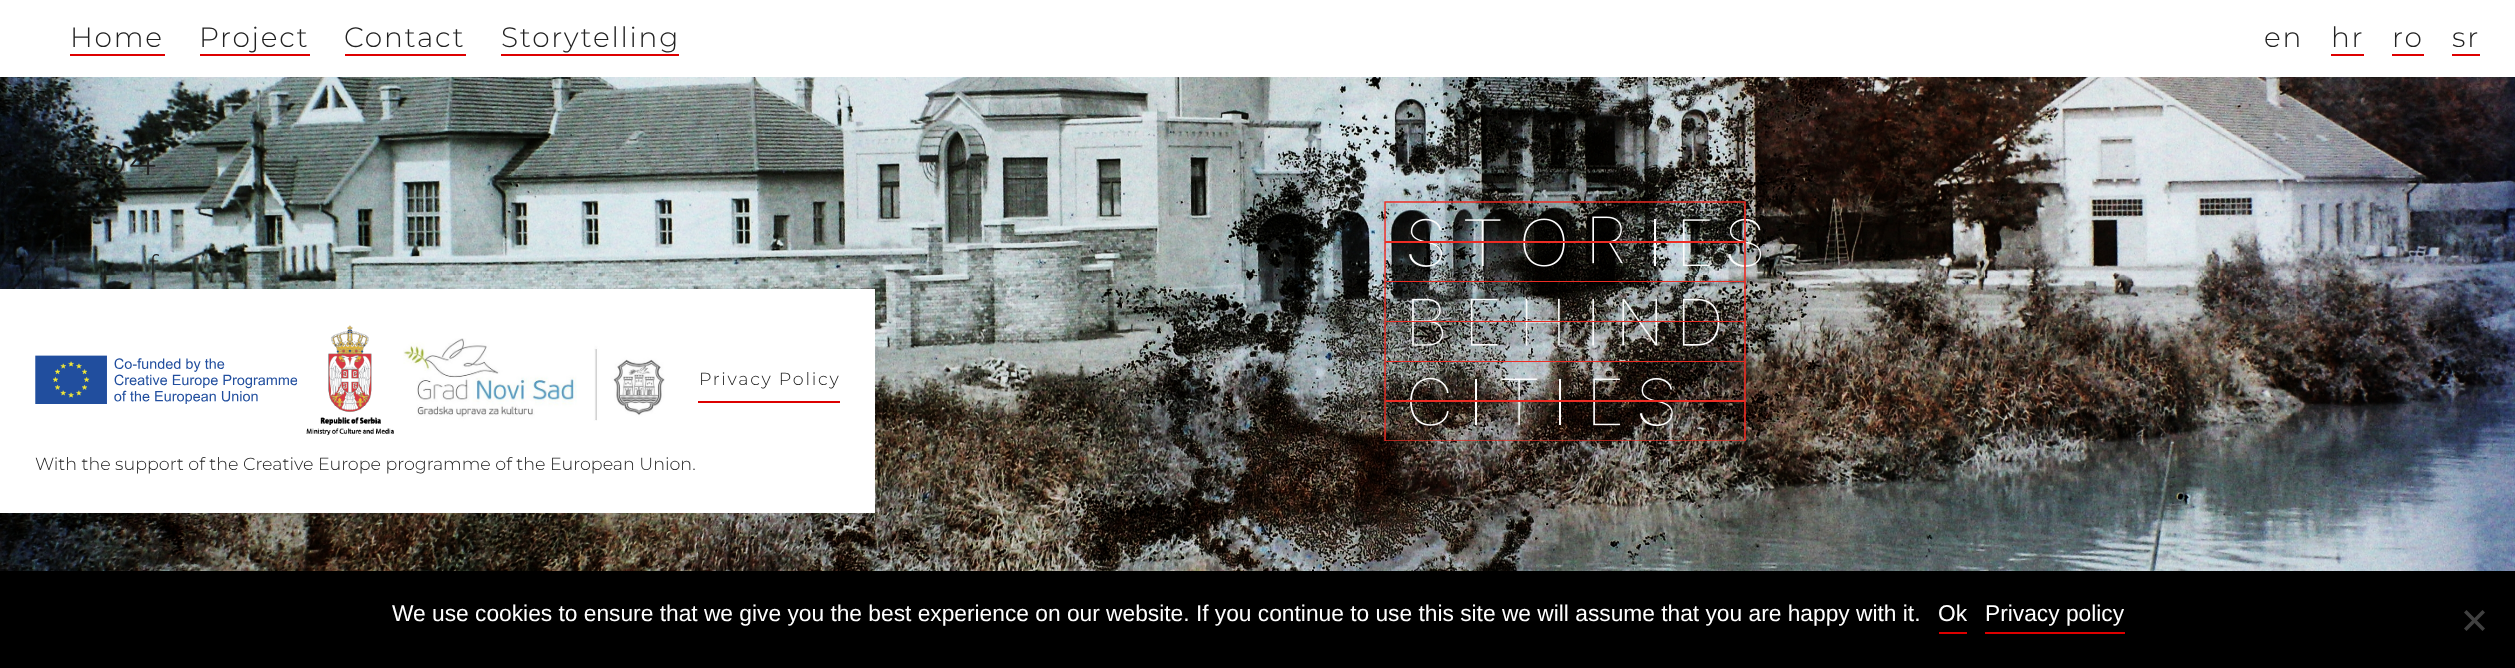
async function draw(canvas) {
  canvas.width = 2515;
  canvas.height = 668;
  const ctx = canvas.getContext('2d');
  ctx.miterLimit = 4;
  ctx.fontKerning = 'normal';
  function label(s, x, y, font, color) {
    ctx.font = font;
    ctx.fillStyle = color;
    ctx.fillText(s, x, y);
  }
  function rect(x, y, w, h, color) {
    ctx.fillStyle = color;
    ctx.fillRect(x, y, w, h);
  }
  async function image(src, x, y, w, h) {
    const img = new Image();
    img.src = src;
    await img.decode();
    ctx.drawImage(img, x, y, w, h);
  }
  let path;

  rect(0, 0, 2515, 668, '#fff');
  await image('assets/img1.png', 0, 77, 2515, 494);
  ctx.letterSpacing = '1.75px';
  label('Home', 70, 47, '300 28px Montserrat', '#222');
  rect(70, 54, 95, 2, '#d00');
  label('Project', 199, 47, '300 28px Montserrat', '#222');
  rect(200, 54, 110, 2, '#d00');
  label('Contact', 344, 47, '300 28px Montserrat', '#222');
  rect(345, 54, 121, 2, '#d00');
  label('Storytelling', 501, 47, '300 28px Montserrat', '#222');
  rect(501, 54, 178, 2, '#d00');
  label('en', 2264, 47, '300 28px Montserrat', '#222');
  label('hr', 2331, 47, '300 28px Montserrat', '#222');
  rect(2331, 54, 33, 2, '#d00');
  label('ro', 2392, 47, '300 28px Montserrat', '#222');
  rect(2392, 54, 32, 2, '#d00');
  label('sr', 2452, 47, '300 28px Montserrat', '#222');
  rect(2452, 54, 28, 2, '#d00');
  label('404', 70, 175, '300 42px Montserrat', '#222');
  label('f', 149, 275, '300 28px Montserrat', '#222');
  await image('assets/img2.png', 1384, 201, 378, 240);
  rect(0, 289, 875, 224, '#fff');
  await image('assets/img3.png', 35, 355, 263, 49);
  await image('assets/img4.png', 306, 325, 88, 111);
  await image('assets/img5.png', 403, 338, 262, 83);
  rect(698, 401, 142, 2, '#d00');
  label('Privacy Policy', 699, 385, '300 17.5px Montserrat', '#222');
  ctx.letterSpacing = '0px';
  label('With the support of the Creative Europe programme of the European Union.', 35, 470, '300 17.5px Montserrat', '#222');
  rect(0, 571, 2515, 97, '#000');
  label('We use cookies to ensure that we give you the best experience on our website. If you continue to use this site we will assume that you are happy with it.', 392, 621, '22.75px Liberation Sans', '#fff');
  rect(1939, 632, 28, 2, '#d00');
  label('Ok', 1938, 621, '22.75px Liberation Sans', '#fff');
  rect(1985, 632, 140, 2, '#d00');
  label('Privacy policy', 1985, 621, '22.75px Liberation Sans', '#fff');
  ctx.fillStyle = '#404040';
  path = new Path2D('M2482.5 610L2485 612.5L2466.5 631L2464 628.5Z');
  ctx.fill(path);
  path = new Path2D('M2464 612.5L2466.5 610L2485 628.5L2482.5 631Z');
  ctx.fill(path);
}

draw(document.querySelector('canvas'));
